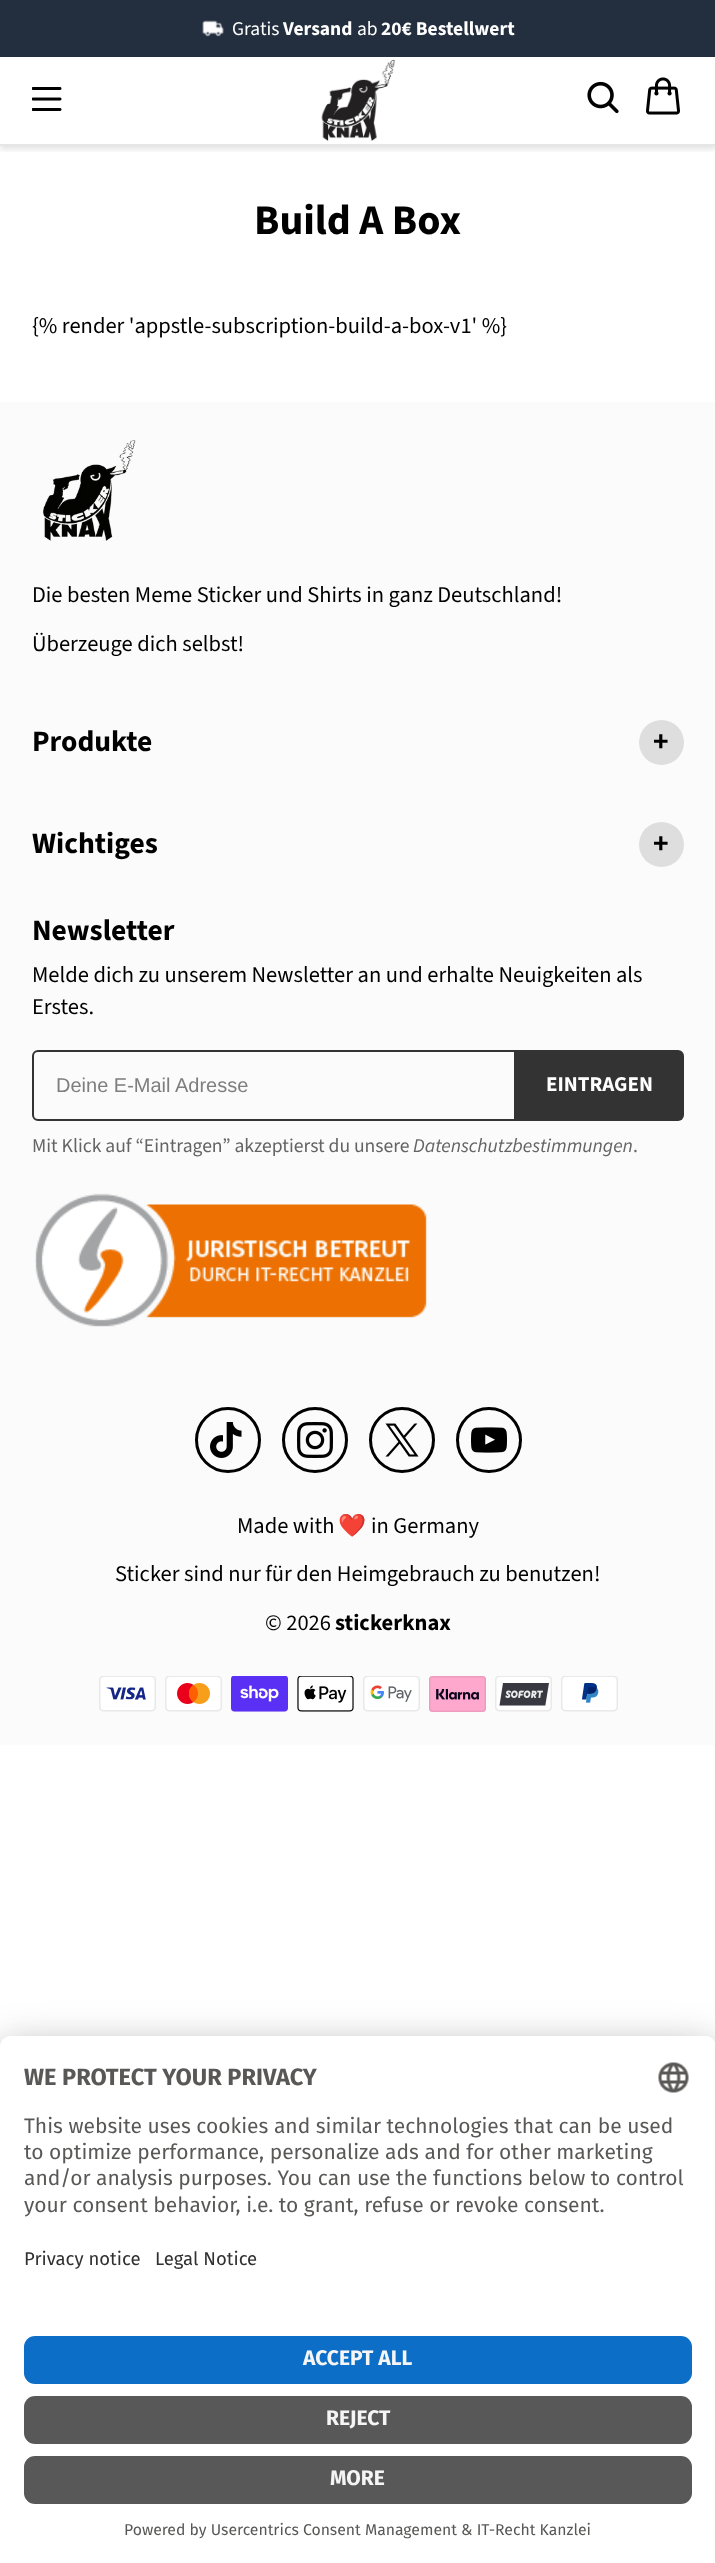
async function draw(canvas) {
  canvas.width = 715;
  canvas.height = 2563;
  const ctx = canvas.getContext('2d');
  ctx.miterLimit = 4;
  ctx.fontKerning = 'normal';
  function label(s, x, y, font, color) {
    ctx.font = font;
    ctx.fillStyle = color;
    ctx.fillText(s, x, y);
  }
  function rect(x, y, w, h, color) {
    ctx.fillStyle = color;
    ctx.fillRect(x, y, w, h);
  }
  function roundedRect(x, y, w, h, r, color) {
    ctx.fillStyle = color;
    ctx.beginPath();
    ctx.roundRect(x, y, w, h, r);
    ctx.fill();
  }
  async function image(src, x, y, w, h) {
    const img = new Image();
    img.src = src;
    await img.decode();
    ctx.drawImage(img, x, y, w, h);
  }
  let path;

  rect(0, 0, 715, 2563, '#fff');
  ctx.save();
  ctx.beginPath();
  ctx.rect(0, 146, 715, 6);
  ctx.clip();
  ctx.fillStyle = '#0000001f';
  ctx.filter = 'blur(3px)';
  ctx.beginPath();
  ctx.rect(0, 60, 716, 89);
  ctx.fill();
  ctx.filter = 'none';
  ctx.restore();
  rect(0, 0, 715, 57, '#232f3e');
  await image('assets/img1.png', 202, 20, 22, 17);
  label('Gratis', 232, 35, '19.5px Source Sans Pro', '#fff');
  label('Versand', 283, 35, 'bold 19.5px Source Sans Pro', '#fff');
  label('ab', 357, 35, '19.5px Source Sans Pro', '#fff');
  label('20€ Bestellwert', 381, 35, 'bold 19.5px Source Sans Pro', '#fff');
  rect(0, 144, 715, 2, '#e6e6e6');
  await image('assets/img2.png', 32, 87, 30, 24);
  await image('assets/img3.png', 321, 60, 75, 81);
  await image('assets/img4.png', 587, 81, 32, 33);
  await image('assets/img5.png', 646, 77, 34, 38);
  label('Build A Box', 254, 234, 'bold 42px Source Sans Pro', '#000');
  label('{% render \'appstle-subscription-build-a-box-v1\' %}', 32, 333, '22.5px Source Sans Pro', '#000');
  rect(0, 402, 715, 1343, '#fbfbfb');
  await image('assets/img6.png', 43, 440, 93, 101);
  label('Die besten Meme Sticker und Shirts in ganz Deutschland!', 32, 602, '22.5px Source Sans Pro', '#000');
  label('Überzeuge dich selbst!', 32, 651, '22.5px Source Sans Pro', '#000');
  label('Produkte', 32, 751, 'bold 29.5px Source Sans Pro', '#000');
  ctx.fillStyle = '#dedede';
  ctx.beginPath();
  ctx.arc(661.5, 742.5, 22.5, 0, 2 * Math.PI);
  ctx.fill();
  label('+', 653, 751, 'bold 29.5px Source Sans Pro', '#000');
  label('Wichtiges', 32, 853, 'bold 29.5px Source Sans Pro', '#000');
  ctx.fillStyle = '#dedede';
  ctx.beginPath();
  ctx.arc(661.5, 844.5, 22.5, 0, 2 * Math.PI);
  ctx.fill();
  label('+', 653, 853, 'bold 29.5px Source Sans Pro', '#000');
  label('Newsletter', 32, 940, 'bold 29.5px Source Sans Pro', '#000');
  label('Melde dich zu unserem Newsletter an und erhalte Neuigkeiten als', 32, 982, '22.5px Source Sans Pro', '#000');
  label('Erstes.', 32, 1014, '22.5px Source Sans Pro', '#000');
  ctx.beginPath();
  ctx.roundRect(33, 1051, 482, 69, [5, 0, 0, 5]);
  ctx.strokeStyle = '#333';
  ctx.lineWidth = 2;
  ctx.stroke();
  label('Deine E-Mail Adresse', 56, 1092, '20px Liberation Sans', '#7e7e7e');
  ctx.fillStyle = '#333';
  ctx.beginPath();
  ctx.roundRect(516, 1050, 168, 71, [0, 6, 6, 0]);
  ctx.fill();
  label('EINTRAGEN', 546, 1091, 'bold 21px Source Sans Pro', '#fff');
  label('Mit Klick auf “Eintragen” akzeptierst du unsere', 32, 1152, '19.6px Source Sans Pro', '#646464');
  label('Datenschutzbestimmungen', 413, 1152, 'italic 19.6px Source Sans Pro', '#646464');
  label('.', 633, 1152, '19.6px Source Sans Pro', '#646464');
  await image('assets/img7.png', 34, 1193, 393, 134);
  ctx.beginPath();
  ctx.arc(228, 1440, 31.5, 0, 2 * Math.PI);
  ctx.strokeStyle = '#000';
  ctx.lineWidth = 3;
  ctx.stroke();
  await image('assets/img8.png', 210, 1422, 32, 36);
  ctx.beginPath();
  ctx.arc(315, 1440, 31.5, 0, 2 * Math.PI);
  ctx.stroke();
  await image('assets/img9.png', 297, 1422, 36, 36);
  ctx.beginPath();
  ctx.arc(402, 1440, 31.5, 0, 2 * Math.PI);
  ctx.stroke();
  await image('assets/img10.png', 385, 1423, 34, 34);
  ctx.beginPath();
  ctx.arc(489, 1440, 31.5, 0, 2 * Math.PI);
  ctx.stroke();
  await image('assets/img11.png', 471, 1427, 36, 26);
  label('Made with', 237, 1533, '22.5px Source Sans Pro', '#000');
  label('❤️', 338, 1533, '22.5px Noto Color Emoji', '#000');
  label('in Germany', 371, 1533, '22.5px Source Sans Pro', '#000');
  label('Sticker sind nur für den Heimgebrauch zu benutzen!', 115, 1581, '22.5px Source Sans Pro', '#000');
  label('© 2026', 265, 1630, '22.5px Source Sans Pro', '#000');
  label('stickerknax', 335, 1630, 'bold 22.5px Source Sans Pro', '#000');
  await image('assets/img12.png', 99, 1676, 57, 36);
  await image('assets/img13.png', 165, 1676, 57, 36);
  await image('assets/img14.png', 231, 1676, 57, 36);
  await image('assets/img15.png', 297, 1676, 57, 36);
  await image('assets/img16.png', 363, 1676, 57, 36);
  await image('assets/img17.png', 429, 1676, 57, 36);
  await image('assets/img18.png', 495, 1676, 57, 36);
  await image('assets/img19.png', 561, 1676, 57, 36);
  ctx.fillStyle = '#0000004d';
  ctx.filter = 'blur(21px)';
  ctx.beginPath();
  ctx.roundRect(0, 2066, 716, 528, 11);
  ctx.fill();
  ctx.filter = 'none';
  ctx.fillStyle = '#00000038';
  ctx.filter = 'blur(19.5px)';
  ctx.beginPath();
  ctx.roundRect(0, 2043, 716, 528, 11);
  ctx.fill();
  ctx.filter = 'none';
  ctx.fillStyle = '#fff';
  path = new Path2D('M11 2036H705C711 2036 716 2041 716 2047V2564H0V2047C0 2041 5 2036 11 2036Z');
  ctx.fill(path);
  path = new Path2D('M11 2036H705C711 2036 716 2041 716 2047V2318H0V2047C0 2041 5 2036 11 2036Z');
  ctx.fill(path);
  label('WE PROTECT YOUR PRIVACY', 24, 2085, 'bold 23.6px Fira Sans', '#595857');
  await image('assets/img20.png', 658, 2062, 31, 31);
  label('This website uses cookies and similar technologies that can be used', 24, 2133, '21px Fira Sans', '#595857');
  label('to optimize performance, personalize ads and for other marketing', 24, 2159, '21px Fira Sans', '#595857');
  label('and/or analysis purposes. You can use the functions below to control', 24, 2185, '21px Fira Sans', '#595857');
  label('your consent behavior, i.e. to grant, refuse or revoke consent.', 24, 2212, '21px Fira Sans', '#595857');
  label('Privacy notice', 24, 2265, '18.5px Fira Sans', '#303030');
  label('Legal Notice', 155, 2265, '18.5px Fira Sans', '#303030');
  roundedRect(24, 2336, 668, 48, 11, '#0c6ec6');
  label('ACCEPT ALL', 303, 2365, 'bold 21px Fira Sans', '#f5f5f5');
  roundedRect(24, 2396, 668, 48, 11, '#585858');
  label('REJECT', 326, 2425, 'bold 21px Fira Sans', '#f5f5f5');
  roundedRect(24, 2456, 668, 48, 11, '#585858');
  label('MORE', 330, 2485, 'bold 21px Fira Sans', '#f5f5f5');
  label('Powered by Usercentrics Consent Management & IT-Recht Kanzlei', 124, 2535, '15.75px Fira Sans', '#595857');
}

draw(document.querySelector('canvas'));
